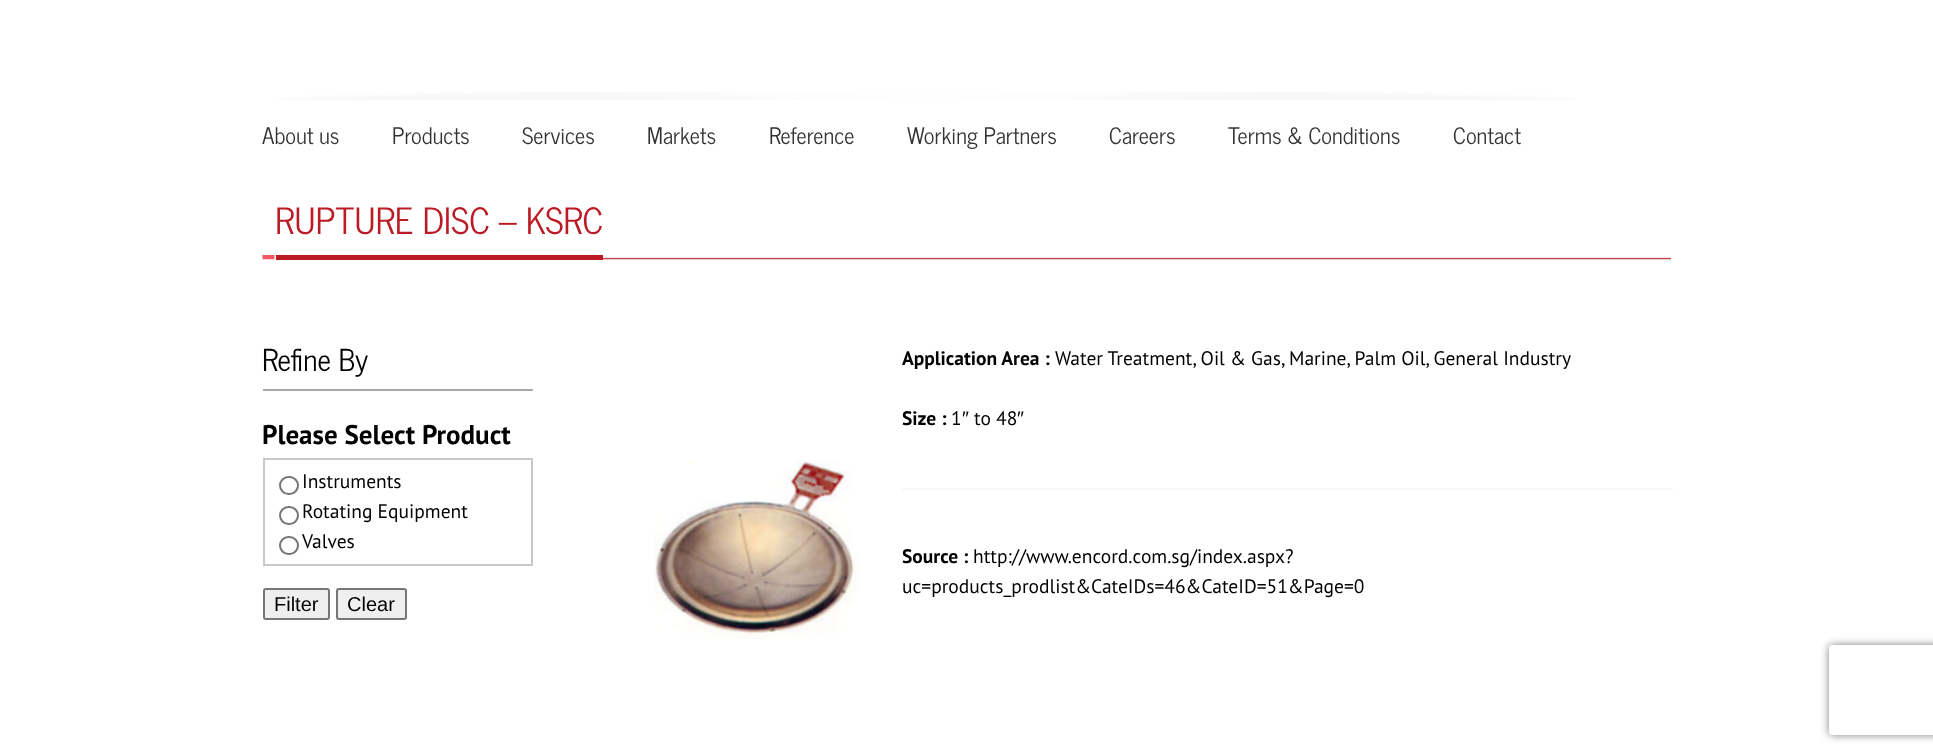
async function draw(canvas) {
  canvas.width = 1933;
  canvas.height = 755;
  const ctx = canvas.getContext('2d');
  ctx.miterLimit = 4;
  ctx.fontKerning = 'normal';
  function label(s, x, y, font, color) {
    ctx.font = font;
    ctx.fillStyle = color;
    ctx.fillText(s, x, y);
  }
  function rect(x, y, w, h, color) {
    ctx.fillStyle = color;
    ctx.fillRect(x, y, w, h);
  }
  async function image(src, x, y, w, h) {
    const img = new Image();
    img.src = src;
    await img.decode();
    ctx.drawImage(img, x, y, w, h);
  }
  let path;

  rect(0, 0, 1933, 755, '#fff');
  await image('assets/img1.png', 279, 92, 1296, 8);
  label('About us', 262, 144, '22.5px News Cycle', '#333');
  label('Products', 392, 144, '22.5px News Cycle', '#333');
  label('Services', 522, 144, '22.5px News Cycle', '#333');
  label('Markets', 647, 144, '22.5px News Cycle', '#333');
  label('Reference', 769, 144, '22.5px News Cycle', '#333');
  label('Working Partners', 907, 144, '22.5px News Cycle', '#333');
  label('Careers', 1109, 144, '22.5px News Cycle', '#333');
  label('Terms & Conditions', 1228, 144, '22.5px News Cycle', '#333');
  label('Contact', 1453, 144, '22.5px News Cycle', '#333');
  await image('assets/img2.png', 262, 255, 1409, 5);
  rect(276, 255, 327, 5, '#bb1b24');
  label('RUPTURE DISC – KSRC', 275, 234, '36px News Cycle', '#bb1b24');
  rect(263, 389, 270, 2, '#a9a9a9');
  label('Refine By', 262, 371, '30px News Cycle', '#010101');
  label('Please Select Product', 262, 444, 'bold 27px PT Sans', '#010101');
  ctx.strokeStyle = '#c8c8c8';
  ctx.lineWidth = 2;
  ctx.strokeRect(264, 459, 268, 106);
  ctx.beginPath();
  ctx.roundRect(280, 477, 18, 17, 8.5);
  ctx.strokeStyle = '#767676';
  ctx.stroke();
  label('Instruments', 302, 488, '19.5px PT Sans', '#010101');
  ctx.beginPath();
  ctx.roundRect(280, 507, 18, 17, 8.5);
  ctx.stroke();
  label('Rotating Equipment', 302, 518, '19.5px PT Sans', '#010101');
  ctx.beginPath();
  ctx.roundRect(280, 537, 18, 17, 8.5);
  ctx.stroke();
  label('Valves', 302, 548, '19.5px PT Sans', '#010101');
  ctx.fillStyle = '#efefef';
  ctx.beginPath();
  ctx.roundRect(264, 589, 65, 30, 2);
  ctx.fill();
  ctx.stroke();
  label('Filter', 274, 611, '20px Liberation Sans', '#010101');
  ctx.fillStyle = '#efefef';
  ctx.beginPath();
  ctx.roundRect(337, 589, 69, 30, 2);
  ctx.fill();
  ctx.stroke();
  label('Clear', 347, 611, '20px Liberation Sans', '#010101');
  await image('assets/img3.png', 654, 460, 206, 179);
  label('Application Area :', 902, 365, 'bold 19.5px PT Sans', '#010101');
  label('Water Treatment, Oil & Gas, Marine, Palm Oil, General Industry', 1055, 365, '19.5px PT Sans', '#010101');
  label('Size :', 902, 425, 'bold 19.5px PT Sans', '#010101');
  label('1', 951, 425, '19.5px PT Sans', '#010101');
  label('″', 962, 425, '19.5px Liberation Sans', '#010101');
  label('to 48', 974, 425, '19.5px PT Sans', '#010101');
  label('″', 1017, 425, '19.5px Liberation Sans', '#010101');
  rect(902, 488, 771, 2, '#f7f7f7');
  label('Source :', 902, 563, 'bold 19.5px PT Sans', '#010101');
  label('http://www.encord.com.sg/index.aspx?', 973, 563, '19.5px PT Sans', '#010101');
  label('uc=products_prodlist&CateIDs=46&CateID=51&Page=0', 902, 593, '19.5px PT Sans', '#010101');
  ctx.save();
  path = new Path2D('M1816 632H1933V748H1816ZM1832 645H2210C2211.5 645 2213 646.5 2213 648V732C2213 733.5 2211.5 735 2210 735H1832C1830.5 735 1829 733.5 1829 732V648C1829 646.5 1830.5 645 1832 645Z');
  ctx.clip(path, 'evenodd');
  ctx.fillStyle = '#808080';
  ctx.filter = 'blur(4px)';
  ctx.beginPath();
  ctx.roundRect(1829, 645, 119, 90, 3);
  ctx.fill();
  ctx.filter = 'none';
  ctx.restore();
}

draw(document.querySelector('canvas'));
